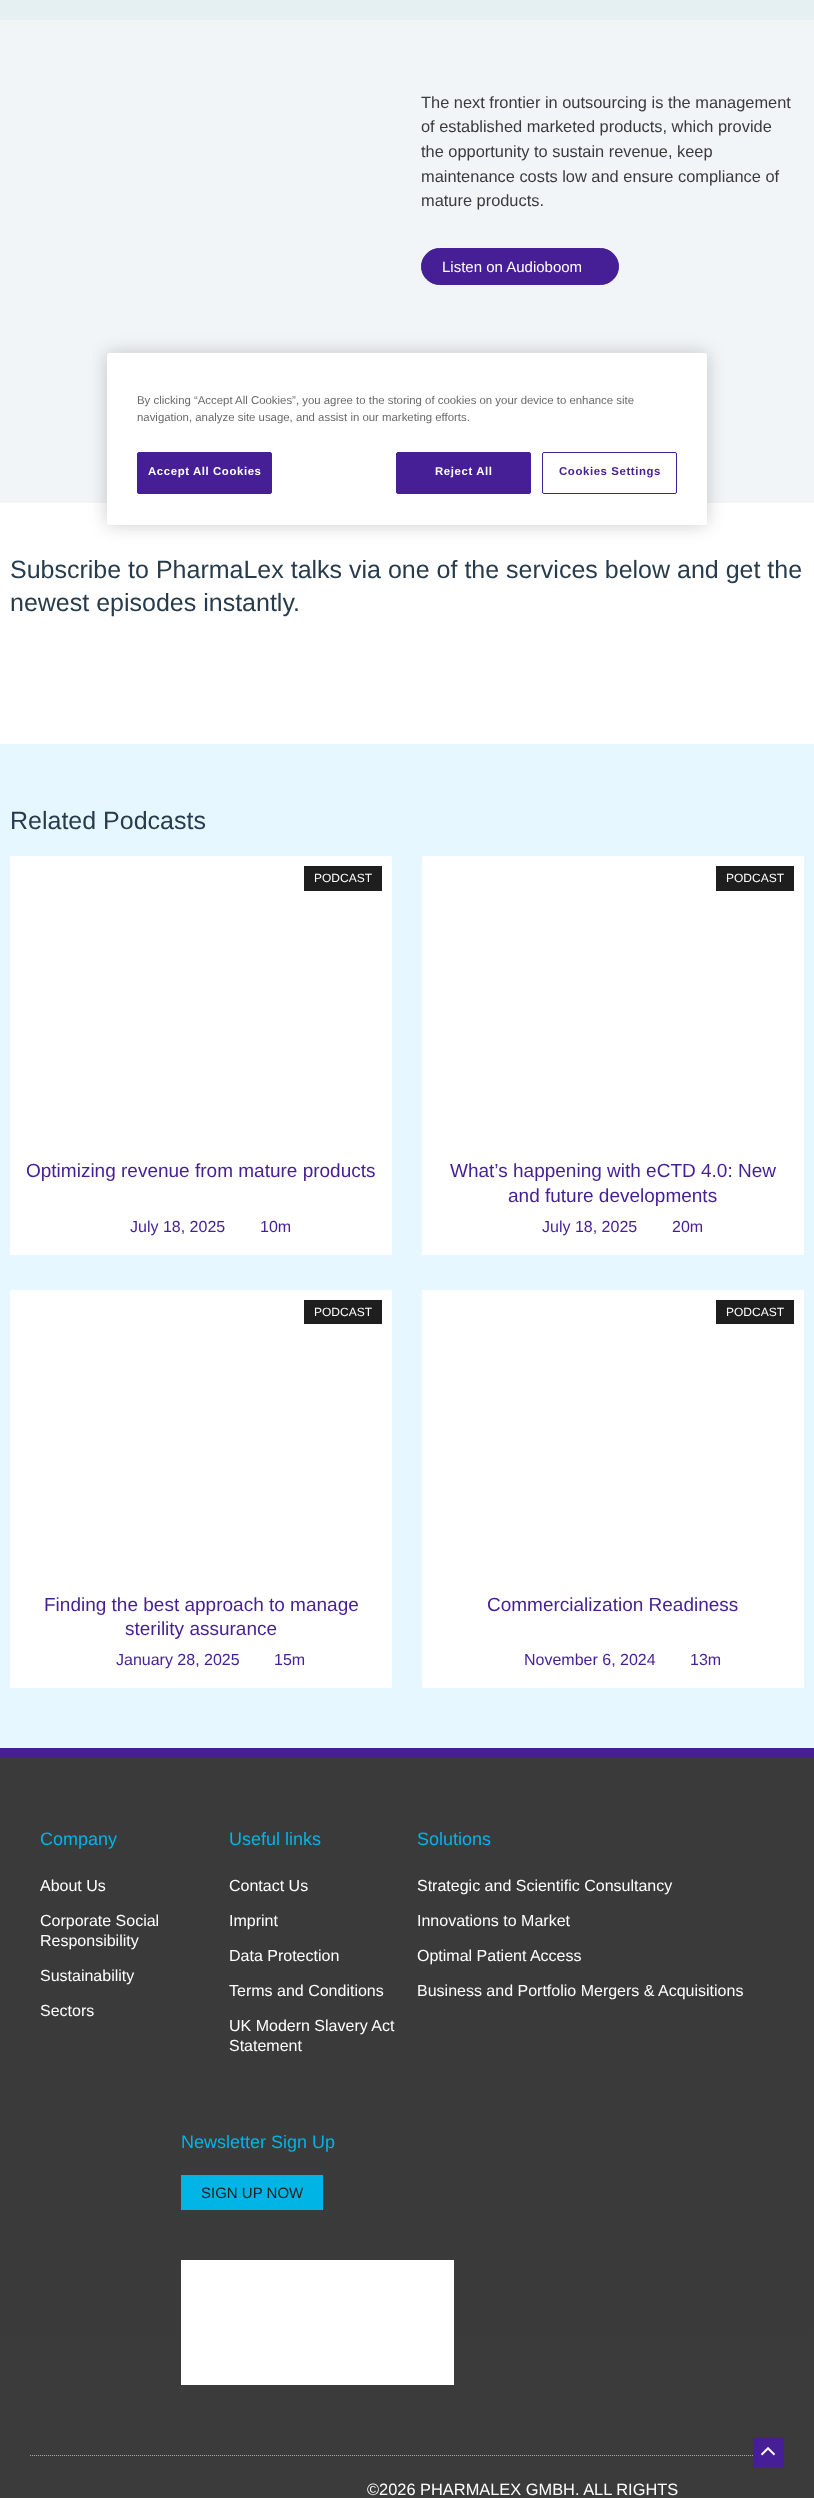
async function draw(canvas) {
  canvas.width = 814;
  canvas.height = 2498;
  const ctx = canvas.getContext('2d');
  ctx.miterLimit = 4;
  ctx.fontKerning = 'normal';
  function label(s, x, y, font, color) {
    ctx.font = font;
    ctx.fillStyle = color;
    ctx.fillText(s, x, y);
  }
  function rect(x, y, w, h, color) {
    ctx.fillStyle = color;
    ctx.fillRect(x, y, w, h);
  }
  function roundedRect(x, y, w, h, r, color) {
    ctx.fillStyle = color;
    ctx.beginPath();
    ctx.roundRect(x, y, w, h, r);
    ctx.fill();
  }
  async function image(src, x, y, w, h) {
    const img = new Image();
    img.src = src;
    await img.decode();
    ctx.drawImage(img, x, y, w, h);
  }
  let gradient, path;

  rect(0, 0, 814, 2498, '#f2f5f7');
  rect(0, 0, 814, 20, '#e4f0f2');
  label('The next frontier in outsourcing is the management', 421, 108, '16.4px Liberation Sans', '#3a3a3a');
  label('of established marketed products, which provide', 421, 132, '16.4px Liberation Sans', '#3a3a3a');
  label('the opportunity to sustain revenue, keep', 421, 157, '16.4px Liberation Sans', '#3a3a3a');
  label('maintenance costs low and ensure compliance of', 421, 182, '16.4px Liberation Sans', '#3a3a3a');
  label('mature products.', 421, 206, '16.4px Liberation Sans', '#3a3a3a');
  ctx.fillStyle = '#461e96';
  ctx.beginPath();
  ctx.roundRect(421.5, 248.5, 197, 36, 18);
  ctx.fill();
  ctx.strokeStyle = '#461e96';
  ctx.stroke();
  label('Listen on Audioboom', 442, 272, '15px Liberation Sans', '#fff');
  rect(0, 503, 814, 241, '#fff');
  label('Subscribe to PharmaLex talks via one of the services below and get the', 10, 578, '25px Liberation Sans', '#263b4c');
  label('newest episodes instantly.', 10, 611, '25px Liberation Sans', '#263b4c');
  rect(0, 744, 814, 1004, '#e7f7ff');
  label('Related Podcasts', 10, 829, '25px Liberation Sans', '#263b4c');
  rect(10, 856, 382, 399, '#fff');
  rect(304, 866, 78, 25, '#1e1e1e');
  label('PODCAST', 314, 882, '12px Liberation Sans', '#fff');
  label('Optimizing revenue from mature products', 26, 1177, '19px Liberation Sans', '#461e96');
  label('July 18, 2025', 130, 1232, '16px Liberation Sans', '#461e96');
  label('10m', 260, 1232, '16px Liberation Sans', '#461e96');
  rect(422, 856, 382, 399, '#fff');
  rect(716, 866, 78, 25, '#1e1e1e');
  label('PODCAST', 726, 882, '12px Liberation Sans', '#fff');
  label('What’s happening with eCTD 4.0: New', 450, 1177, '19px Liberation Sans', '#461e96');
  label('and future developments', 508, 1202, '19px Liberation Sans', '#461e96');
  label('July 18, 2025', 542, 1232, '16px Liberation Sans', '#461e96');
  label('20m', 672, 1232, '16px Liberation Sans', '#461e96');
  rect(10, 1290, 382, 398, '#fff');
  rect(304, 1300, 78, 24, '#1e1e1e');
  label('PODCAST', 314, 1316, '12px Liberation Sans', '#fff');
  label('Finding the best approach to manage', 44, 1611, '19px Liberation Sans', '#461e96');
  label('sterility assurance', 125, 1635, '19px Liberation Sans', '#461e96');
  label('January 28, 2025', 116, 1665, '16px Liberation Sans', '#461e96');
  label('15m', 274, 1665, '16px Liberation Sans', '#461e96');
  rect(422, 1290, 382, 398, '#fff');
  rect(716, 1300, 78, 24, '#1e1e1e');
  label('PODCAST', 726, 1316, '12px Liberation Sans', '#fff');
  label('Commercialization Readiness', 487, 1611, '19px Liberation Sans', '#461e96');
  label('November 6, 2024', 524, 1665, '16px Liberation Sans', '#461e96');
  label('13m', 690, 1665, '16px Liberation Sans', '#461e96');
  gradient = ctx.createLinearGradient(407, 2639, 407, 1758);
  gradient.addColorStop(0, '#3b3b3b');
  gradient.addColorStop(1, '#3a3a3a');
  ctx.fillStyle = gradient;
  ctx.fillRect(0, 1758, 814, 740);
  rect(0, 1748, 814, 10, '#461e96');
  label('Company', 40, 1845, '18px Liberation Sans', '#00b4e6');
  label('About Us', 40, 1891, '16px Liberation Sans', '#fff');
  label('Corporate Social', 40, 1926, '16px Liberation Sans', '#fff');
  label('Responsibility', 40, 1946, '16px Liberation Sans', '#fff');
  label('Sustainability', 40, 1981, '16px Liberation Sans', '#fff');
  label('Sectors', 40, 2016, '16px Liberation Sans', '#fff');
  label('Useful links', 229, 1845, '18px Liberation Sans', '#00b4e6');
  label('Contact Us', 229, 1891, '16px Liberation Sans', '#fff');
  label('Imprint', 229, 1926, '16px Liberation Sans', '#fff');
  label('Data Protection', 229, 1961, '16px Liberation Sans', '#fff');
  label('Terms and Conditions', 229, 1996, '16px Liberation Sans', '#fff');
  label('UK Modern Slavery Act', 229, 2031, '16px Liberation Sans', '#fff');
  label('Statement', 229, 2051, '16px Liberation Sans', '#fff');
  label('Solutions', 417, 1845, '18px Liberation Sans', '#00b4e6');
  label('Strategic and Scientific Consultancy', 417, 1891, '16px Liberation Sans', '#fff');
  label('Innovations to Market', 417, 1926, '16px Liberation Sans', '#fff');
  label('Optimal Patient Access', 417, 1961, '16px Liberation Sans', '#fff');
  label('Business and Portfolio Mergers & Acquisitions', 417, 1996, '16px Liberation Sans', '#fff');
  label('Newsletter Sign Up', 181, 2148, '18px Liberation Sans', '#00b4e6');
  rect(181, 2175, 142, 35, '#00b4e6');
  label('SIGN UP NOW', 201, 2198, '15px Liberation Sans', '#1e1e1e');
  rect(181, 2260, 273, 125, '#fff');
  path = new Path2D('M30 2455.5H784');
  ctx.strokeStyle = '#a9a9a9';
  ctx.setLineDash([1, 1]);
  ctx.stroke(path);
  label('©2026 PHARMALEX GMBH. ALL RIGHTS', 367, 2495, '16.4px Liberation Sans', '#fff');
  ctx.fillStyle = '#00000033';
  ctx.filter = 'blur(9px)';
  ctx.beginPath();
  ctx.roundRect(107, 353, 600, 172, 2.5);
  ctx.fill();
  ctx.filter = 'none';
  roundedRect(107, 353, 600, 172, 2.5, '#fff');
  label('By clicking “Accept All Cookies”, you agree to the storing of cookies on your device to enhance site', 137, 404, '11.4px Liberation Sans', '#696969');
  label('navigation, analyze site usage, and assist in our marketing efforts.', 137, 421, '11.4px Liberation Sans', '#696969');
  ctx.fillStyle = '#461e96';
  ctx.beginPath();
  ctx.roundRect(137.5, 452.5, 134, 41, 1.5);
  ctx.fill();
  ctx.strokeStyle = '#461e96';
  ctx.setLineDash([]);
  ctx.stroke();
  ctx.letterSpacing = '0.6px';
  label('Accept All Cookies', 148, 475, 'bold 11.4px Liberation Sans', '#fff');
  ctx.fillStyle = '#461e96';
  ctx.beginPath();
  ctx.roundRect(396.5, 452.5, 134, 41, 1.5);
  ctx.fill();
  ctx.stroke();
  label('Reject All', 435, 475, 'bold 11.4px Liberation Sans', '#fff');
  ctx.beginPath();
  ctx.roundRect(542.5, 452.5, 134, 41, 1.5);
  ctx.stroke();
  label('Cookies Settings', 559, 475, 'bold 11.4px Liberation Sans', '#461e96');
  roundedRect(753, 2437, 31, 31, 2, '#461e96');
  await image('assets/img1.png', 761, 2447, 15, 9);
}

draw(document.querySelector('canvas'));
